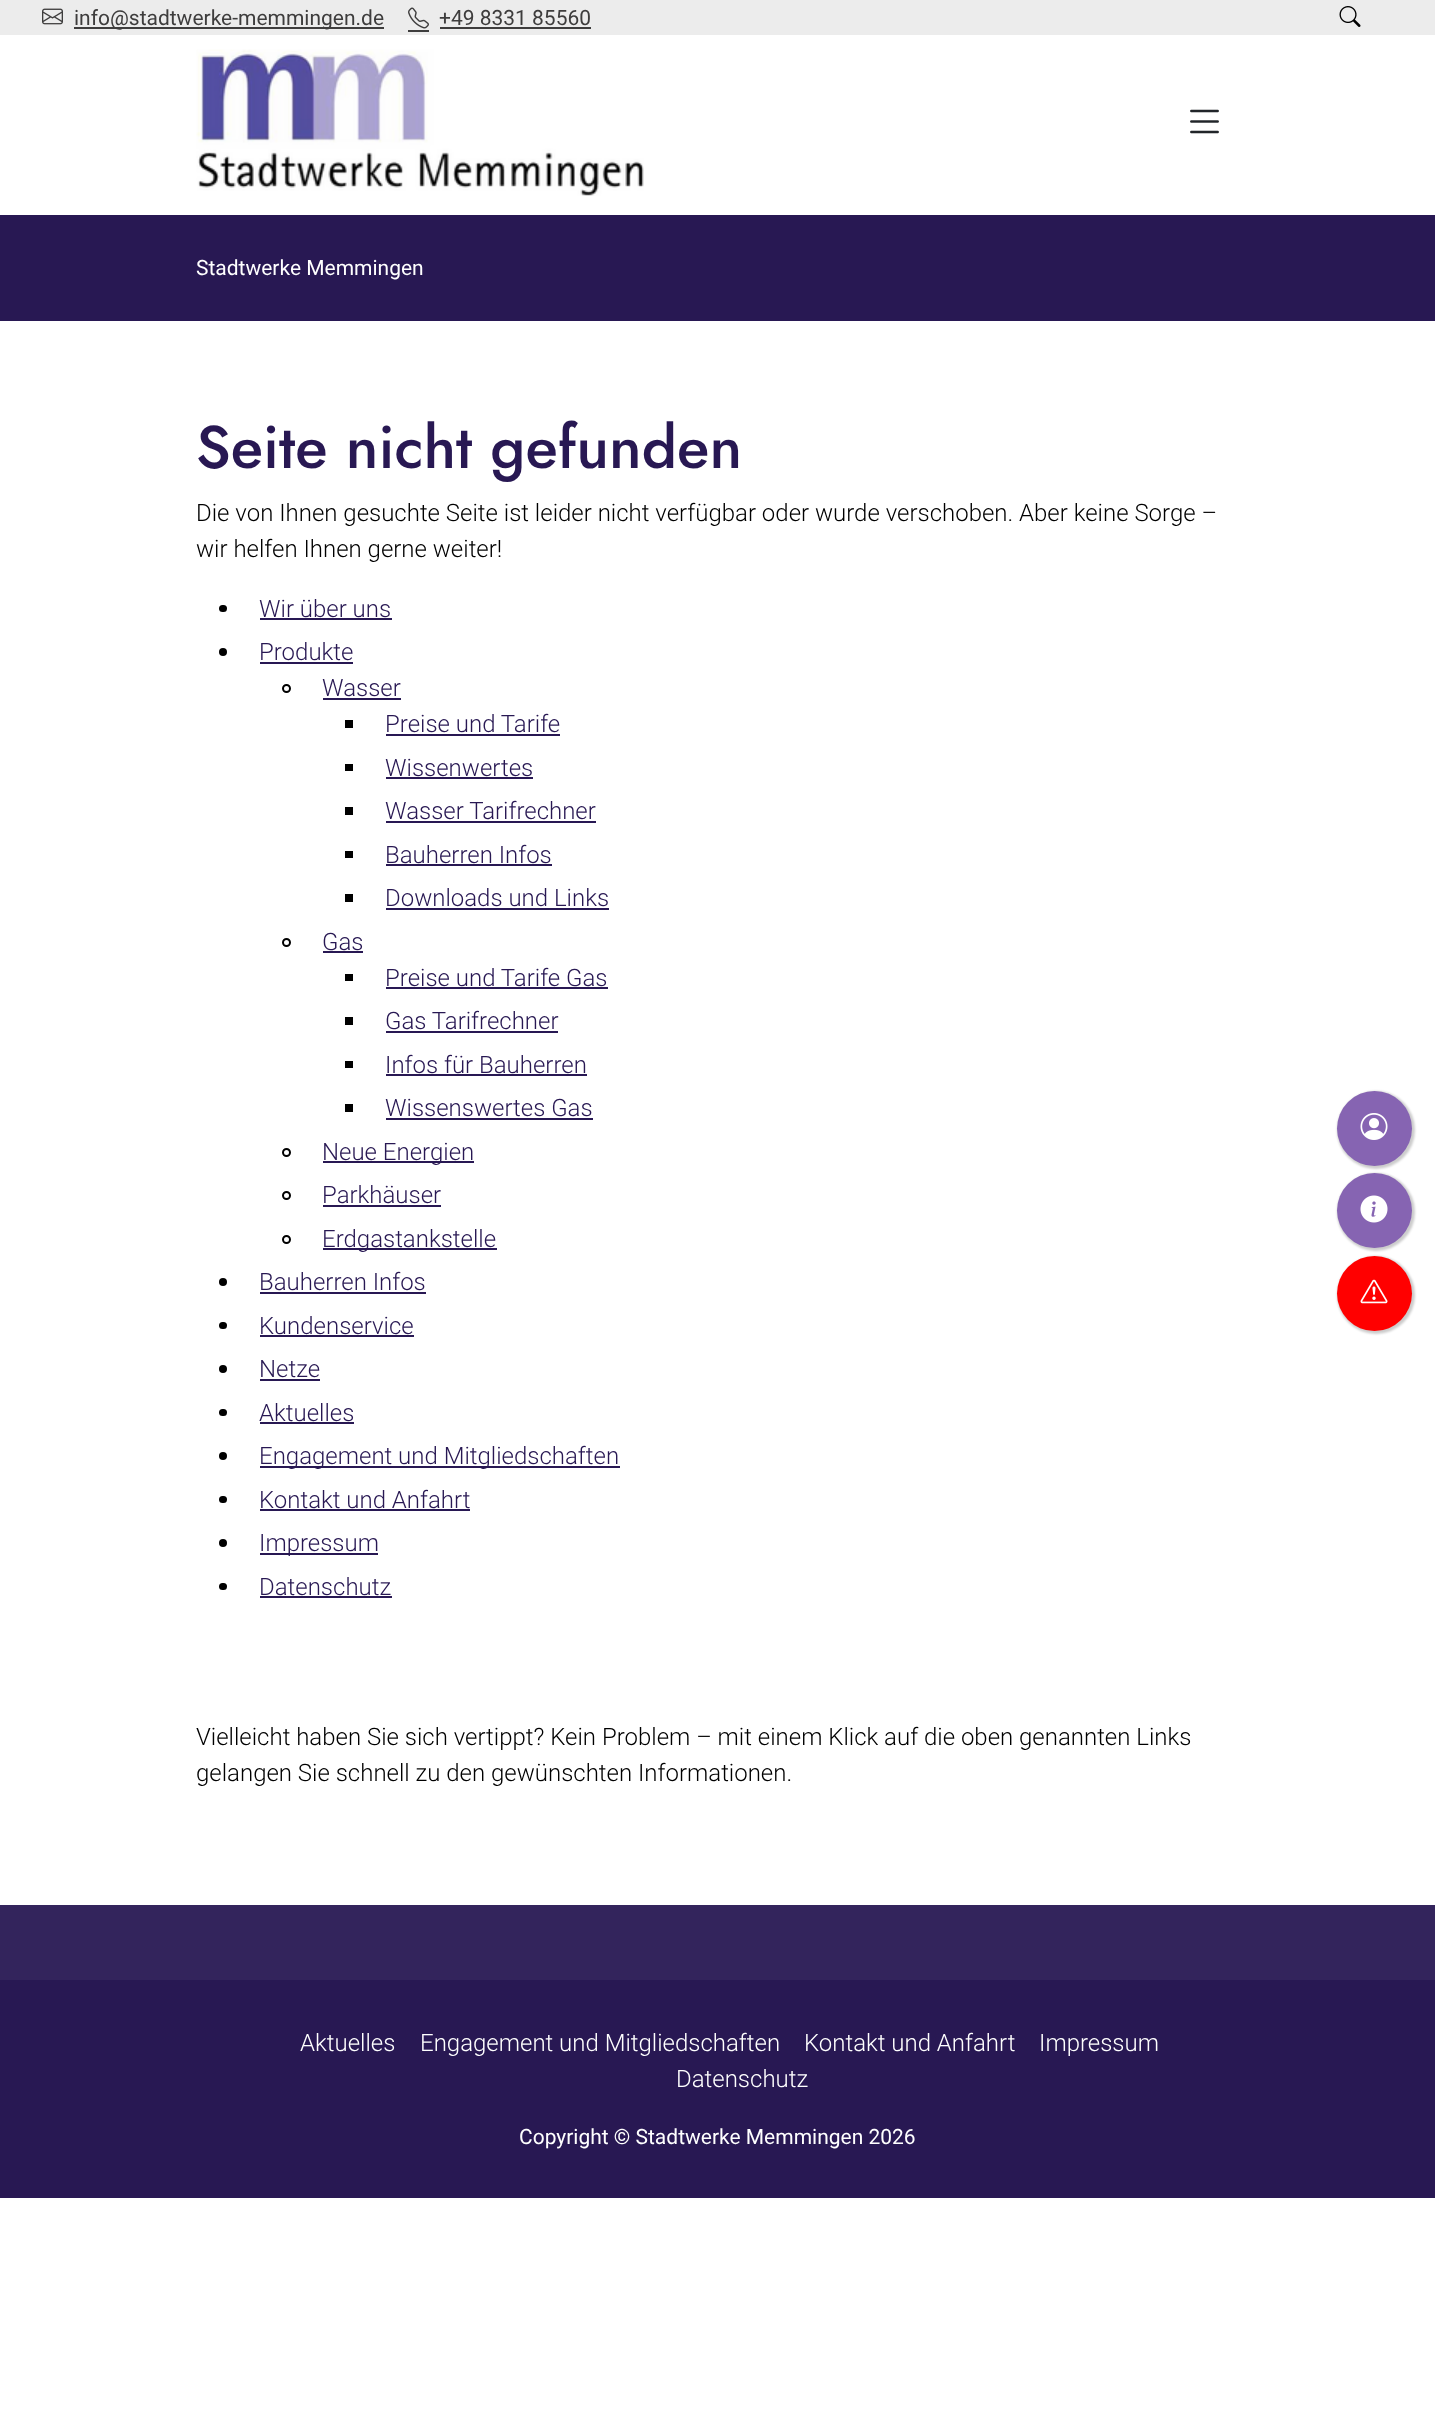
async function draw(canvas) {
  canvas.width = 1435;
  canvas.height = 2425;
  const ctx = canvas.getContext('2d');
  ctx.miterLimit = 4;
  ctx.fontKerning = 'normal';
  function label(s, x, y, font, color) {
    ctx.font = font;
    ctx.fillStyle = color;
    ctx.fillText(s, x, y);
  }
  function rect(x, y, w, h, color) {
    ctx.fillStyle = color;
    ctx.fillRect(x, y, w, h);
  }
  function roundedRect(x, y, w, h, r, color) {
    ctx.fillStyle = color;
    ctx.beginPath();
    ctx.roundRect(x, y, w, h, r);
    ctx.fill();
  }
  async function image(src, x, y, w, h) {
    const img = new Image();
    img.src = src;
    await img.decode();
    ctx.drawImage(img, x, y, w, h);
  }

  rect(0, 0, 1435, 2425, '#fff');
  rect(0, 0, 1435, 35, '#ececec');
  await image('assets/img1.png', 42, 8, 21, 17);
  rect(74, 27, 310, 2, '#3e3d3d');
  label('info@stadtwerke-memmingen.de', 74, 25, '21px Roboto', '#3e3d3d');
  rect(408, 30, 21, 2, '#3e3d3d');
  await image('assets/img2.png', 408, 7, 21, 22);
  label('+49 8331 85560', 439, 25, '21px Roboto', '#3e3d3d');
  rect(440, 27, 151, 2, '#3e3d3d');
  await image('assets/img3.png', 1339, 6, 22, 21);
  await image('assets/img4.png', 196, 49, 448, 147);
  await image('assets/img5.png', 1190, 109, 29, 25);
  rect(0, 215, 1435, 106, '#281853');
  label('Stadtwerke Memmingen', 196, 275, '21px Roboto', '#fff');
  label('Seite nicht gefunden', 196, 468, '500 60px Jost', '#281853');
  label('Die von Ihnen gesuchte Seite ist leider nicht verfügbar oder wurde verschoben. Aber keine Sorge –', 196, 521, '300 24px Roboto', '#000');
  label('wir helfen Ihnen gerne weiter!', 196, 557, '300 24px Roboto', '#000');
  roundedRect(219, 605, 8, 7, 3.5, '#000');
  label('Wir über uns', 259, 617, '300 24px Roboto', '#281853');
  rect(260, 618, 132, 2, '#281853');
  ctx.fillStyle = '#000';
  ctx.beginPath();
  ctx.arc(223, 652, 4, 0, 2 * Math.PI);
  ctx.fill();
  label('Produkte', 259, 660, '300 24px Roboto', '#281853');
  rect(260, 662, 93, 2, '#281853');
  ctx.beginPath();
  ctx.arc(286.5, 688.5, 3.5, 0, 2 * Math.PI);
  ctx.strokeStyle = '#000';
  ctx.lineWidth = 2;
  ctx.stroke();
  label('Wasser', 322, 696, '300 24px Roboto', '#281853');
  rect(323, 698, 78, 2, '#281853');
  rect(345, 720, 8, 8, '#000');
  label('Preise und Tarife', 385, 732, '300 24px Roboto', '#281853');
  rect(386, 734, 174, 2, '#281853');
  rect(345, 764, 8, 7, '#000');
  label('Wissenwertes', 385, 776, '300 24px Roboto', '#281853');
  rect(386, 777, 147, 2, '#281853');
  rect(345, 807, 8, 8, '#000');
  label('Wasser Tarifrechner', 385, 819, '300 24px Roboto', '#281853');
  rect(386, 821, 210, 2, '#281853');
  rect(345, 851, 8, 7, '#000');
  label('Bauherren Infos', 385, 863, '300 24px Roboto', '#281853');
  rect(386, 864, 166, 2, '#281853');
  rect(345, 894, 8, 8, '#000');
  label('Downloads und Links', 385, 906, '300 24px Roboto', '#281853');
  rect(386, 908, 223, 2, '#281853');
  ctx.beginPath();
  ctx.arc(286.5, 942.5, 3.5, 0, 2 * Math.PI);
  ctx.stroke();
  label('Gas', 322, 950, '300 24px Roboto', '#281853');
  rect(323, 951, 40, 2, '#281853');
  rect(345, 974, 8, 7, '#000');
  label('Preise und Tarife Gas', 385, 986, '300 24px Roboto', '#281853');
  rect(386, 987, 222, 2, '#281853');
  rect(345, 1017, 8, 8, '#000');
  label('Gas Tarifrechner', 385, 1029, '300 24px Roboto', '#281853');
  rect(386, 1031, 172, 2, '#281853');
  rect(345, 1061, 8, 7, '#000');
  label('Infos für Bauherren', 385, 1073, '300 24px Roboto', '#281853');
  rect(386, 1074, 201, 2, '#281853');
  rect(345, 1104, 8, 8, '#000');
  label('Wissenswertes Gas', 385, 1116, '300 24px Roboto', '#281853');
  rect(386, 1118, 207, 2, '#281853');
  ctx.beginPath();
  ctx.arc(286.5, 1152.5, 3.5, 0, 2 * Math.PI);
  ctx.stroke();
  rect(323, 1161, 151, 2, '#281853');
  label('Neue Energien', 322, 1160, '300 24px Roboto', '#281853');
  ctx.beginPath();
  ctx.arc(286.5, 1195.5, 3.5, 0, 2 * Math.PI);
  ctx.stroke();
  label('Parkhäuser', 322, 1203, '300 24px Roboto', '#281853');
  rect(323, 1205, 118, 2, '#281853');
  ctx.beginPath();
  ctx.arc(286.5, 1239.5, 3.5, 0, 2 * Math.PI);
  ctx.stroke();
  rect(323, 1248, 174, 2, '#281853');
  label('Erdgastankstelle', 322, 1247, '300 24px Roboto', '#281853');
  ctx.fillStyle = '#000';
  ctx.beginPath();
  ctx.arc(223, 1282, 4, 0, 2 * Math.PI);
  ctx.fill();
  label('Bauherren Infos', 259, 1290, '300 24px Roboto', '#281853');
  rect(260, 1292, 166, 2, '#281853');
  roundedRect(219, 1322, 8, 7, 3.5, '#000');
  label('Kundenservice', 259, 1334, '300 24px Roboto', '#281853');
  rect(260, 1335, 154, 2, '#281853');
  ctx.fillStyle = '#000';
  ctx.beginPath();
  ctx.arc(223, 1369, 4, 0, 2 * Math.PI);
  ctx.fill();
  label('Netze', 259, 1377, '300 24px Roboto', '#281853');
  rect(260, 1379, 60, 2, '#281853');
  roundedRect(219, 1409, 8, 7, 3.5, '#000');
  label('Aktuelles', 259, 1421, '300 24px Roboto', '#281853');
  rect(260, 1422, 94, 2, '#281853');
  ctx.fillStyle = '#000';
  ctx.beginPath();
  ctx.arc(223, 1456, 4, 0, 2 * Math.PI);
  ctx.fill();
  rect(260, 1466, 360, 2, '#281853');
  label('Engagement und Mitgliedschaften', 259, 1464, '300 24px Roboto', '#281853');
  roundedRect(219, 1496, 8, 7, 3.5, '#000');
  label('Kontakt und Anfahrt', 259, 1508, '300 24px Roboto', '#281853');
  rect(260, 1509, 210, 2, '#281853');
  ctx.fillStyle = '#000';
  ctx.beginPath();
  ctx.arc(223, 1543, 4, 0, 2 * Math.PI);
  ctx.fill();
  rect(260, 1553, 118, 2, '#281853');
  label('Impressum', 259, 1551, '300 24px Roboto', '#281853');
  roundedRect(219, 1583, 8, 7, 3.5, '#000');
  label('Datenschutz', 259, 1595, '300 24px Roboto', '#281853');
  rect(260, 1596, 132, 2, '#281853');
  label('Vielleicht haben Sie sich vertippt? Kein Problem – mit einem Klick auf die oben genannten Links', 196, 1745, '300 24px Roboto', '#000');
  label('gelangen Sie schnell zu den gewünschten Informationen.', 196, 1781, '300 24px Roboto', '#000');
  ctx.fillStyle = '#00000033';
  ctx.filter = 'blur(1px)';
  ctx.beginPath();
  ctx.roundRect(1337, 1091, 78, 78, 39);
  ctx.fill();
  ctx.filter = 'none';
  ctx.fillStyle = '#8664b2';
  ctx.beginPath();
  ctx.arc(1374.5, 1128.5, 37.5, 0, 2 * Math.PI);
  ctx.fill();
  await image('assets/img6.png', 1360, 1113, 28, 27);
  ctx.fillStyle = '#00000033';
  ctx.filter = 'blur(1px)';
  ctx.beginPath();
  ctx.roundRect(1337, 1173, 78, 78, 39);
  ctx.fill();
  ctx.filter = 'none';
  ctx.fillStyle = '#8664b2';
  ctx.beginPath();
  ctx.arc(1374.5, 1210.5, 37.5, 0, 2 * Math.PI);
  ctx.fill();
  await image('assets/img7.png', 1360, 1195, 28, 28);
  ctx.fillStyle = '#00000033';
  ctx.filter = 'blur(1px)';
  ctx.beginPath();
  ctx.roundRect(1337, 1256, 78, 78, 39);
  ctx.fill();
  ctx.filter = 'none';
  ctx.fillStyle = '#f00';
  ctx.beginPath();
  ctx.arc(1374.5, 1293.5, 37.5, 0, 2 * Math.PI);
  ctx.fill();
  await image('assets/img8.png', 1360, 1279, 28, 25);
  rect(0, 1980, 1435, 218, '#281853');
  rect(0, 1905, 1435, 75, '#33245c');
  label('Aktuelles', 300, 2051, '300 24px Roboto', '#fff');
  label('Engagement und Mitgliedschaften', 420, 2051, '300 24px Roboto', '#fff');
  label('Kontakt und Anfahrt', 804, 2051, '300 24px Roboto', '#fff');
  label('Impressum', 1039, 2051, '300 24px Roboto', '#fff');
  label('Datenschutz', 676, 2087, '300 24px Roboto', '#fff');
  label('Copyright © Stadtwerke Memmingen 2026', 519, 2144, '21px Roboto', '#fff');
}

draw(document.querySelector('canvas'));
